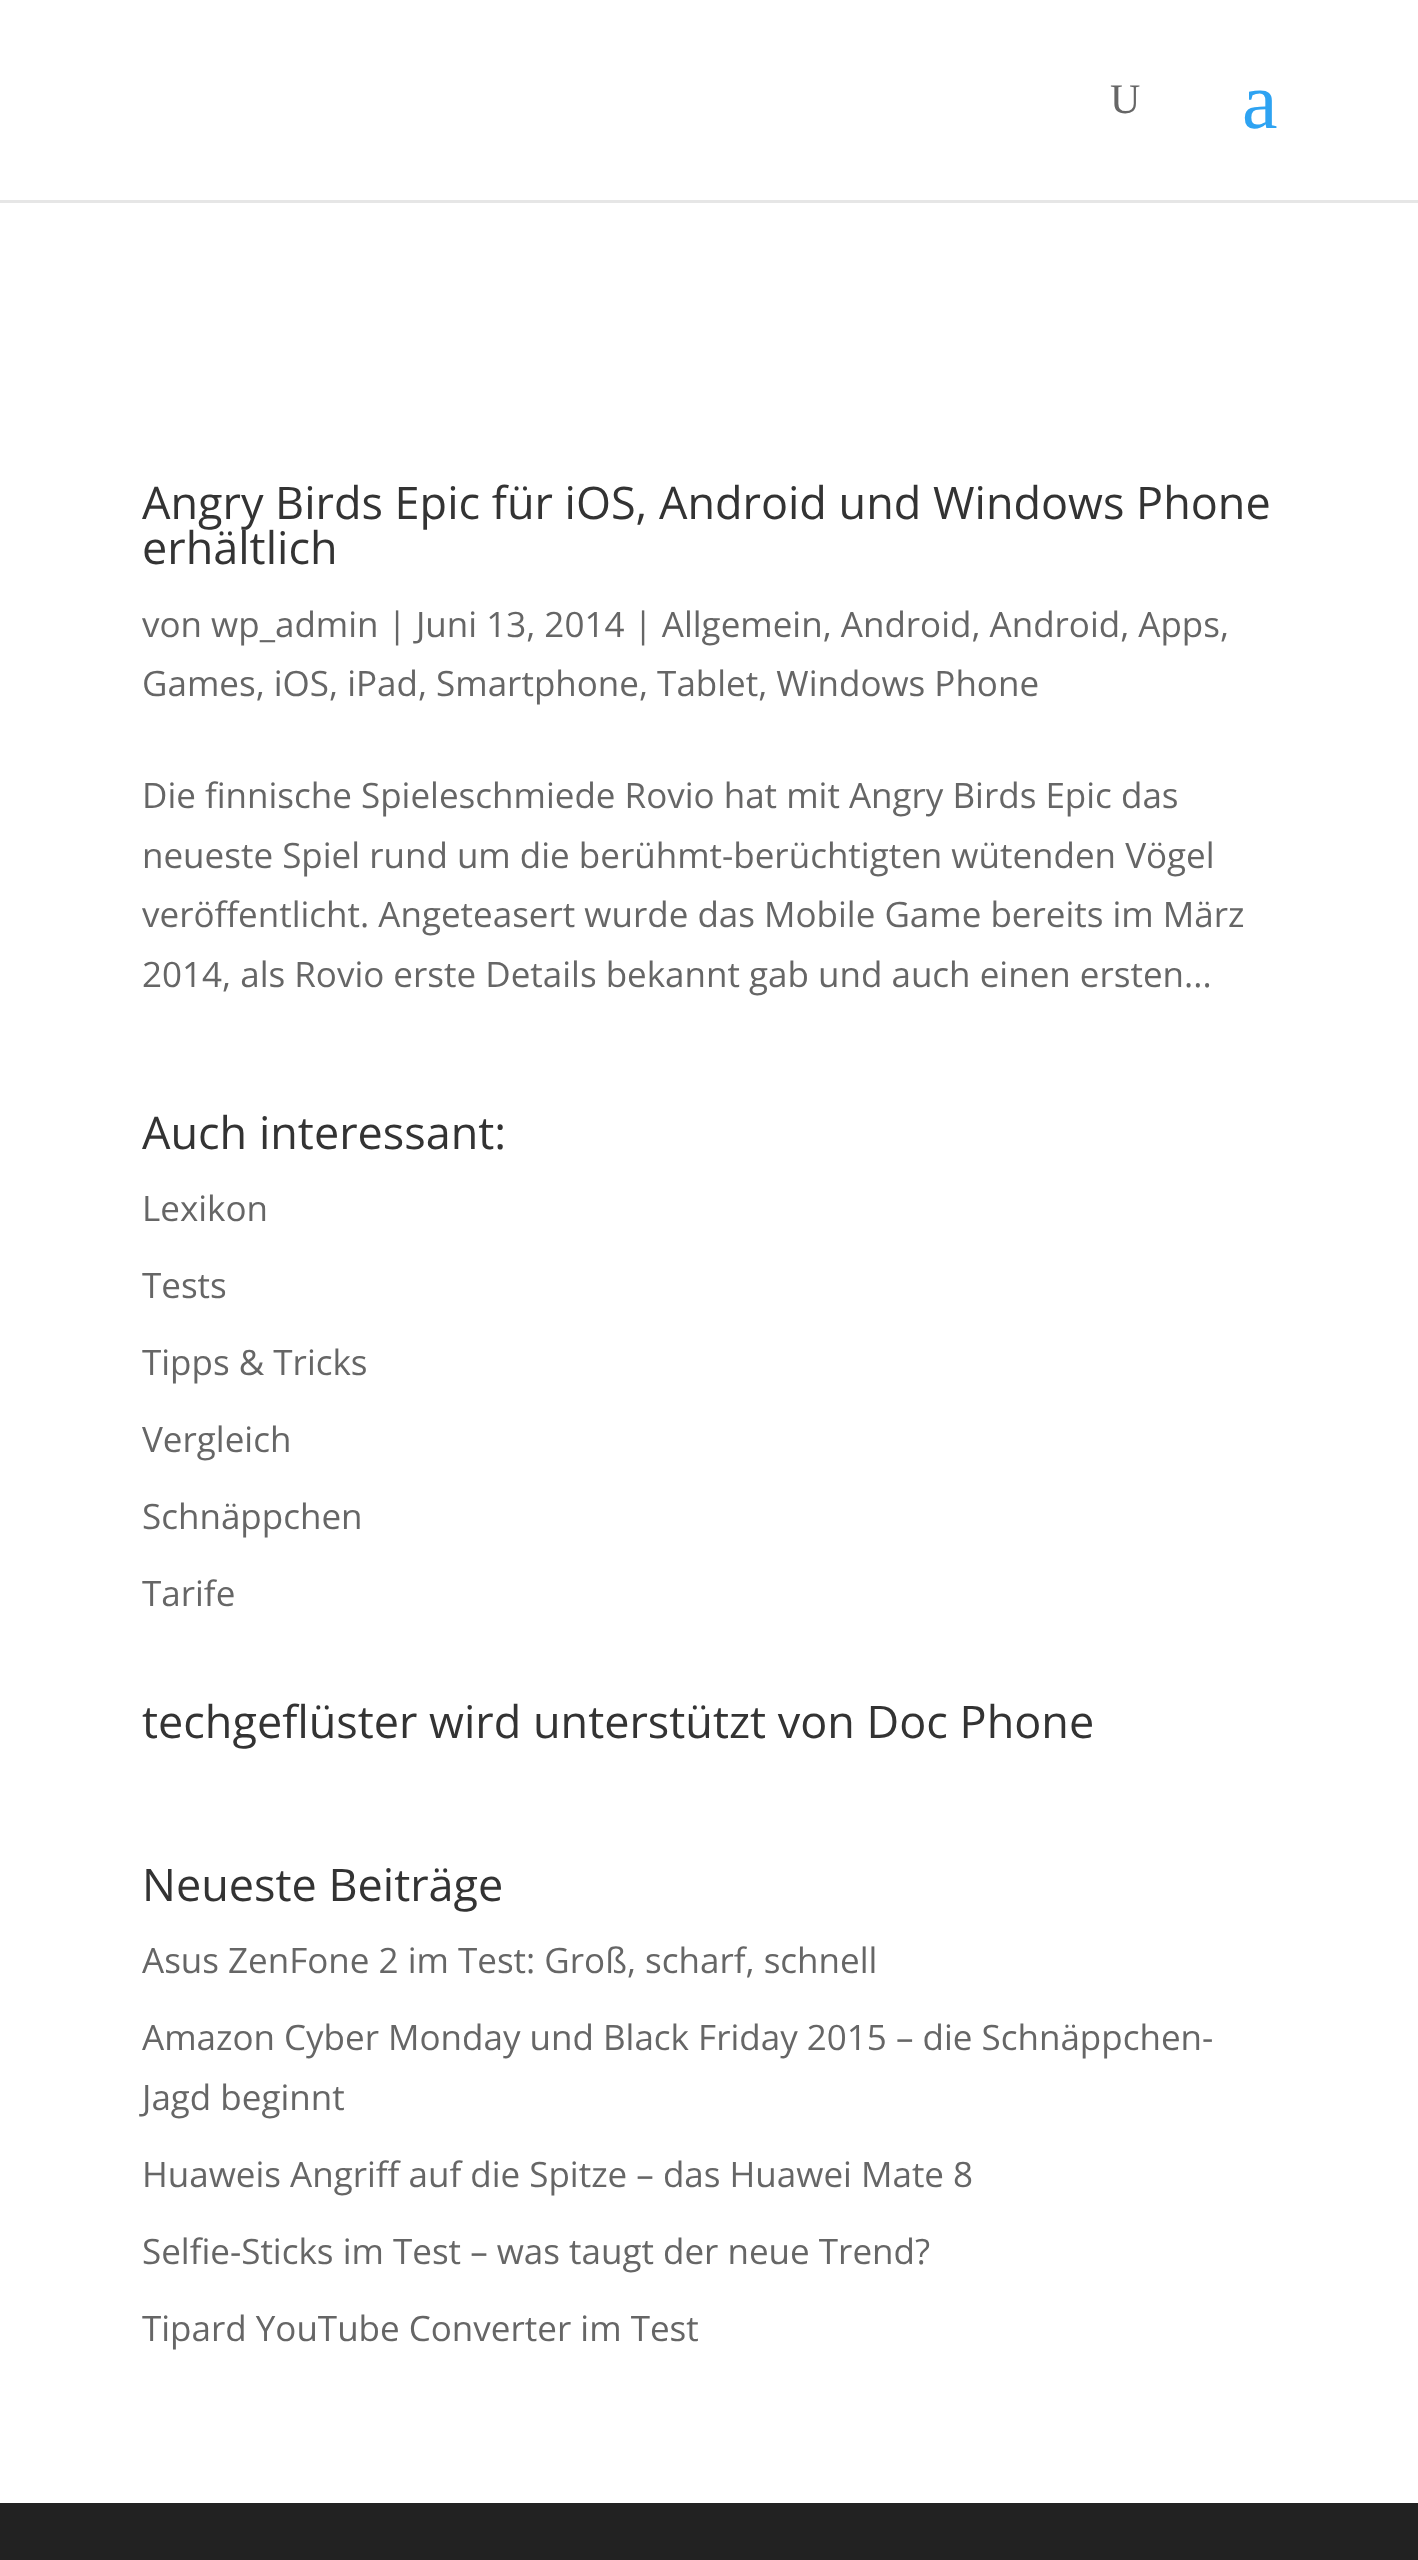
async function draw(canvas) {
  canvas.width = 1418;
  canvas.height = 2560;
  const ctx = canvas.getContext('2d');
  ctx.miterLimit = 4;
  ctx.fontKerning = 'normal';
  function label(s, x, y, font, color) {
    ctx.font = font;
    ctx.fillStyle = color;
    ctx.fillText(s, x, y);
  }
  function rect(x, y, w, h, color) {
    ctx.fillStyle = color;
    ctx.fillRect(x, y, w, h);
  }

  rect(0, 0, 1418, 2560, '#fff');
  rect(0, 200, 1418, 3, '#e6e6e6');
  label('U', 1110, 113, '42px Liberation Serif', '#666');
  label('a', 1242, 128, '80px Liberation Serif', '#2ea3f2');
  label('Angry Birds Epic für iOS, Android und Windows Phone', 142, 519, '45px Open Sans', '#333');
  label('erhältlich', 142, 564, '45px Open Sans', '#333');
  label('von wp_admin | Juni 13, 2014 | Allgemein, Android, Android, Apps,', 142, 637, '35px Open Sans', '#666');
  label('Games, iOS, iPad, Smartphone, Tablet, Windows Phone', 142, 696, '35px Open Sans', '#666');
  label('Die finnische Spieleschmiede Rovio hat mit Angry Birds Epic das', 142, 808, '35px Open Sans', '#666');
  label('neueste Spiel rund um die berühmt-berüchtigten wütenden Vögel', 142, 868, '35px Open Sans', '#666');
  label('veröffentlicht. Angeteasert wurde das Mobile Game bereits im März', 142, 927, '35px Open Sans', '#666');
  label('2014, als Rovio erste Details bekannt gab und auch einen ersten...', 142, 987, '35px Open Sans', '#666');
  label('Auch interessant:', 142, 1149, '45px Open Sans', '#333');
  label('Lexikon', 142, 1221, '35px Open Sans', '#666');
  label('Tests', 142, 1298, '35px Open Sans', '#666');
  label('Tipps & Tricks', 142, 1375, '35px Open Sans', '#666');
  label('Vergleich', 142, 1452, '35px Open Sans', '#666');
  label('Schnäppchen', 142, 1529, '35px Open Sans', '#666');
  label('Tarife', 142, 1606, '35px Open Sans', '#666');
  label('techgeflüster wird unterstützt von Doc Phone', 142, 1738, '45px Open Sans', '#333');
  label('Neueste Beiträge', 142, 1901, '45px Open Sans', '#333');
  label('Asus ZenFone 2 im Test: Groß, scharf, schnell', 142, 1973, '35px Open Sans', '#666');
  label('Amazon Cyber Monday und Black Friday 2015 – die Schnäppchen-', 142, 2050, '35px Open Sans', '#666');
  label('Jagd beginnt', 142, 2110, '35px Open Sans', '#666');
  label('Huaweis Angriff auf die Spitze – das Huawei Mate 8', 142, 2187, '35px Open Sans', '#666');
  label('Selfie-Sticks im Test – was taugt der neue Trend?', 142, 2264, '35px Open Sans', '#666');
  label('Tipard YouTube Converter im Test', 142, 2341, '35px Open Sans', '#666');
  rect(0, 2503, 1418, 57, '#222');
}

draw(document.querySelector('canvas'));
